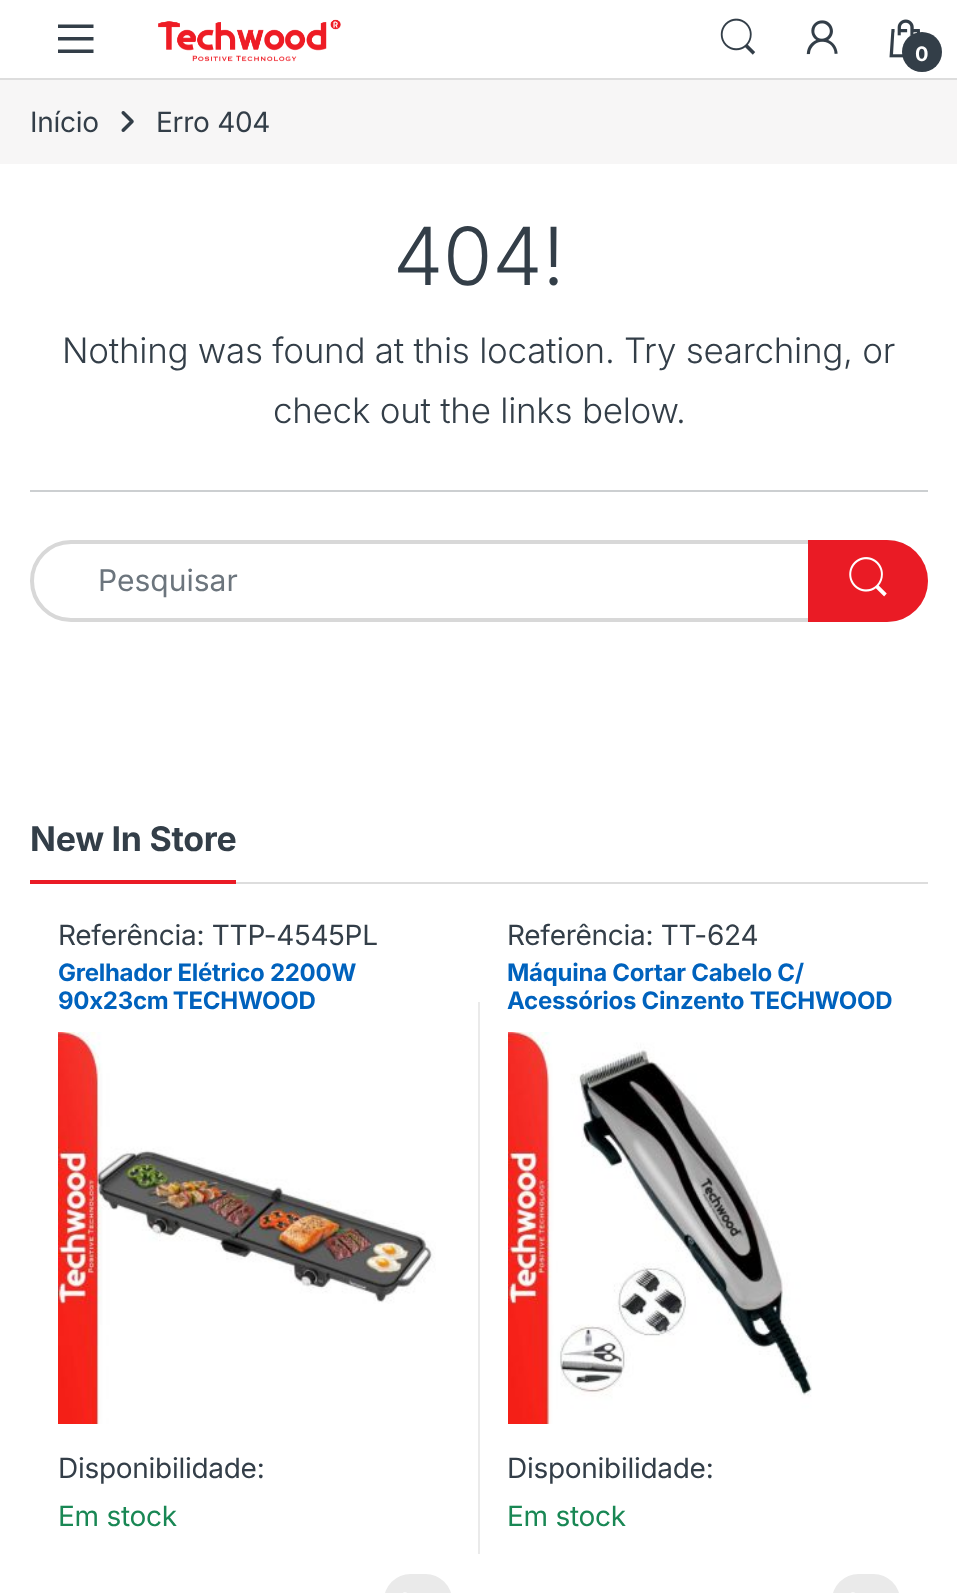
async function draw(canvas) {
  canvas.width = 957;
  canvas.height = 1593;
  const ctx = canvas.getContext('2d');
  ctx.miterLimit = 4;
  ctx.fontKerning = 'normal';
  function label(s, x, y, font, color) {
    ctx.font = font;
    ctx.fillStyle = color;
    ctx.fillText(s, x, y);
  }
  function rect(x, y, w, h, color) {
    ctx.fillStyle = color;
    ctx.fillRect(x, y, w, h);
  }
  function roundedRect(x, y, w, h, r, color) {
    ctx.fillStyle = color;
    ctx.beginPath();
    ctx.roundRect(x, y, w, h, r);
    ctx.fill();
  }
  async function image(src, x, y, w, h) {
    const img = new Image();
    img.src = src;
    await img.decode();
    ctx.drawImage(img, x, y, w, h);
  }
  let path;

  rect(0, 0, 957, 1593, '#fff');
  rect(0, 78, 957, 2, '#ddd');
  ctx.fillStyle = '#333e48';
  path = new Path2D('M58 53V49.5H93.5V53ZM58 37H93.5V40.5H58ZM58 24.5H93.5V28H58Z');
  ctx.fill(path);
  await image('assets/img1.png', 158, 19, 183, 43);
  await image('assets/img2.png', 720, 18, 36, 37);
  await image('assets/img3.png', 806, 20, 32, 35);
  await image('assets/img4.png', 889, 19, 32, 39);
  ctx.beginPath();
  ctx.arc(922, 52, 20, 0, 2 * Math.PI);
  ctx.fill();
  ctx.letterSpacing = '-0.28px';
  label('0', 915, 61, 'bold 20px Inter', '#fff');
  rect(0, 80, 957, 84, '#f7f6f6');
  label('Início', 30, 132, '28px Inter', '#333e48');
  await image('assets/img5.png', 121, 111, 13, 21);
  label('Erro 404', 156, 132, '28px Inter', '#333e48');
  label('404!', 393, 285, '300 80px Inter', '#333e48');
  label('Nothing was found at this location. Try searching, or', 62, 363, '300 35px Inter', '#333e48');
  label('check out the links below.', 273, 423, '300 35px Inter', '#333e48');
  rect(30, 490, 898, 2, '#cccfd1');
  ctx.beginPath();
  ctx.roundRect(32, 542, 894, 78, 39);
  ctx.strokeStyle = '#d8d8d8';
  ctx.lineWidth = 4;
  ctx.stroke();
  ctx.letterSpacing = '0px';
  label('Pesquisar', 98, 591, '30px Inter', '#6c757d');
  ctx.fillStyle = '#ea1b25';
  ctx.beginPath();
  ctx.roundRect(808, 540, 120, 82, [0, 41, 41, 0]);
  ctx.fill();
  await image('assets/img6.png', 849, 557, 38, 40);
  rect(236, 882, 692, 2, '#ddd');
  ctx.letterSpacing = '-0.28px';
  label('New In Store', 30, 851, 'bold 34px Inter', '#333e48');
  rect(30, 880, 206, 4, '#ea1b25');
  label('Referência: TTP-4545PL', 58, 945, '28px Inter', '#333e48');
  label('Grelhador Elétrico 2200W', 58, 981, 'bold 24px Inter', '#0062bd');
  ctx.wordSpacing = '-1px';
  label('90x23cm TECHWOOD', 58, 1009, 'bold 24px Inter', '#0062bd');
  await image('assets/img7.png', 58, 1032, 378, 392);
  ctx.wordSpacing = '0px';
  label('Disponibilidade:', 58, 1478, '28px Inter', '#333e48');
  label('Em stock', 58, 1526, '28px Inter', '#198754');
  roundedRect(384, 1574, 68, 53, 34, '#eaeaea');
  await image('assets/img8.png', 403, 1592, 4, 1);
  rect(478, 1002, 2, 552, '#eaeaea');
  label('Referência: TT-624', 507, 945, '28px Inter', '#333e48');
  label('Máquina Cortar Cabelo C/', 507, 981, 'bold 24px Inter', '#0062bd');
  label('Acessórios Cinzento TECHWOOD', 507, 1009, 'bold 24px Inter', '#0062bd');
  await image('assets/img9.png', 508, 1032, 304, 392);
  label('Disponibilidade:', 507, 1478, '28px Inter', '#333e48');
  label('Em stock', 507, 1526, '28px Inter', '#198754');
  roundedRect(832, 1574, 68, 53, 34, '#eaeaea');
  await image('assets/img8.png', 851, 1592, 4, 1);
}

draw(document.querySelector('canvas'));
